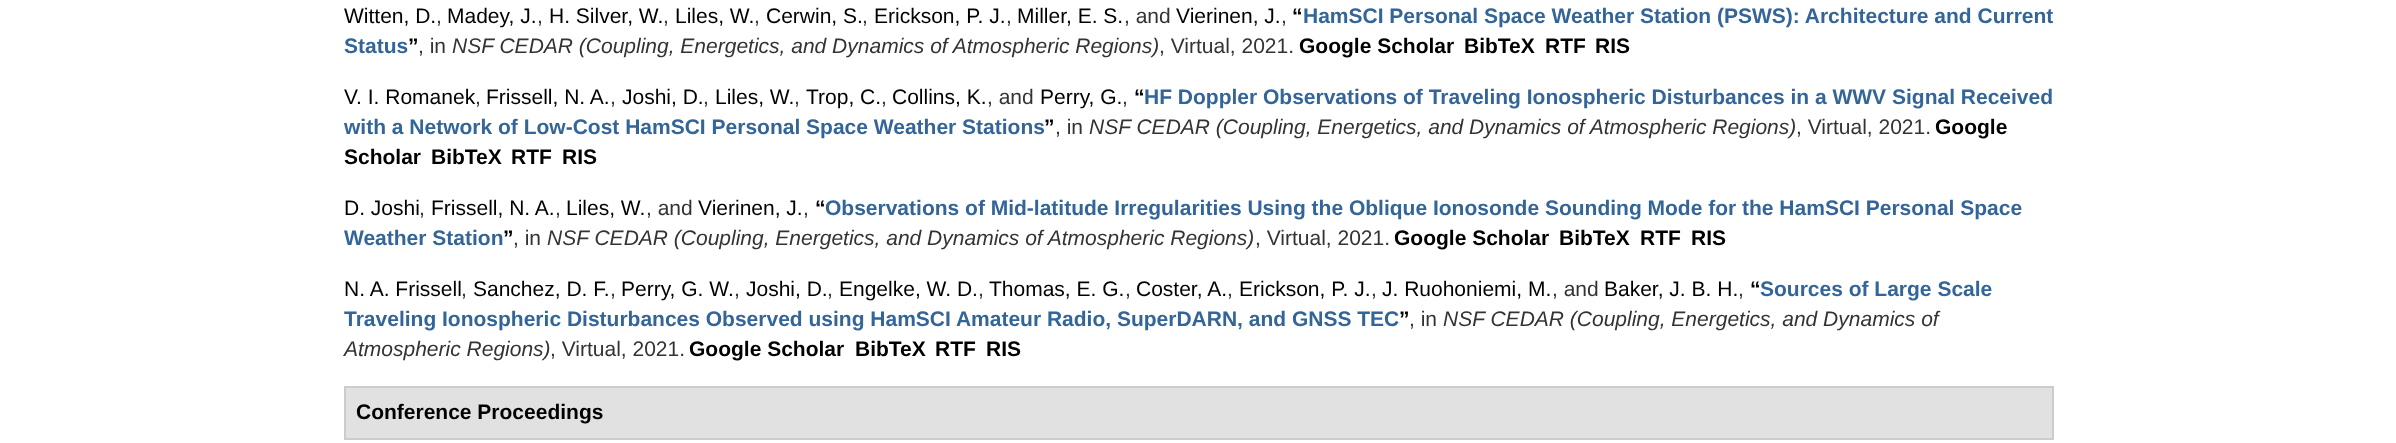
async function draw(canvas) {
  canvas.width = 2396;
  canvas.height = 443;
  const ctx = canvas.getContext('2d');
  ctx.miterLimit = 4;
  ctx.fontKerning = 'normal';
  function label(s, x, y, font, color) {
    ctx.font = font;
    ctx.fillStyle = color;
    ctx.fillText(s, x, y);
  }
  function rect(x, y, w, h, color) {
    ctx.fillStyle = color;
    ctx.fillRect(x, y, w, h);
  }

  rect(0, 0, 2396, 443, '#fff');
  label('Witten, D.', 344, 23, '21px Liberation Sans', '#000');
  label('Madey, J.', 447, 23, '21px Liberation Sans', '#000');
  label('H. Silver, W.', 549, 23, '21px Liberation Sans', '#000');
  label('Liles, W.', 675, 23, '21px Liberation Sans', '#000');
  label('Cerwin, S.', 766, 23, '21px Liberation Sans', '#000');
  label('Erickson, P. J.', 874, 23, '21px Liberation Sans', '#000');
  label('Miller, E. S.', 1017, 23, '21px Liberation Sans', '#000');
  label(', and', 1124, 23, '21px Liberation Sans', '#333');
  label('Vierinen, J.', 1176, 23, '21px Liberation Sans', '#000');
  label('“', 1292, 23, 'bold 21px Liberation Sans', '#000');
  label('HamSCI Personal Space Weather Station (PSWS): Architecture and Current', 1303, 23, 'bold 21px Liberation Sans', '#336599');
  label(',', 436, 23, '21px Liberation Sans', '#333');
  label(',', 537, 23, '21px Liberation Sans', '#333');
  label(',', 663, 23, '21px Liberation Sans', '#333');
  label(',', 754, 23, '21px Liberation Sans', '#333');
  label(',', 862, 23, '21px Liberation Sans', '#333');
  label(',', 1006, 23, '21px Liberation Sans', '#333');
  label(',', 1281, 23, '21px Liberation Sans', '#333');
  label('Status', 344, 53, 'bold 21px Liberation Sans', '#336599');
  label('”', 408, 53, 'bold 21px Liberation Sans', '#000');
  label(', in', 418, 53, '21px Liberation Sans', '#333');
  label('NSF CEDAR (Coupling, Energetics, and Dynamics of Atmospheric Regions)', 452, 53, 'italic 21px Liberation Sans', '#333');
  label(', Virtual, 2021.', 1159, 53, '21px Liberation Sans', '#333');
  label('Google Scholar', 1299, 53, 'bold 21px Liberation Sans', '#000');
  label('BibTeX', 1464, 53, 'bold 21px Liberation Sans', '#000');
  label('RTF', 1545, 53, 'bold 21px Liberation Sans', '#000');
  label('RIS', 1595, 53, 'bold 21px Liberation Sans', '#000');
  label('V. I. Romanek', 344, 104, '21px Liberation Sans', '#000');
  label('Frissell, N. A.', 486, 104, '21px Liberation Sans', '#000');
  label('Joshi, D.', 622, 104, '21px Liberation Sans', '#000');
  label('Liles, W.', 715, 104, '21px Liberation Sans', '#000');
  label('Trop, C.', 806, 104, '21px Liberation Sans', '#000');
  label('Collins, K.', 892, 104, '21px Liberation Sans', '#000');
  label(', and', 987, 104, '21px Liberation Sans', '#333');
  label('Perry, G.', 1040, 104, '21px Liberation Sans', '#000');
  label('“', 1134, 104, 'bold 21px Liberation Sans', '#000');
  label('HF Doppler Observations of Traveling Ionospheric Disturbances in a WWV Signal Received', 1144, 104, 'bold 21px Liberation Sans', '#336599');
  label(',', 475, 104, '21px Liberation Sans', '#333');
  label(',', 610, 104, '21px Liberation Sans', '#333');
  label(',', 703, 104, '21px Liberation Sans', '#333');
  label(',', 794, 104, '21px Liberation Sans', '#333');
  label(',', 881, 104, '21px Liberation Sans', '#333');
  label(',', 1122, 104, '21px Liberation Sans', '#333');
  label('with a Network of Low-Cost HamSCI Personal Space Weather Stations', 344, 134, 'bold 21px Liberation Sans', '#336599');
  label('”', 1044, 134, 'bold 21px Liberation Sans', '#000');
  label(', in', 1055, 134, '21px Liberation Sans', '#333');
  label('NSF CEDAR (Coupling, Energetics, and Dynamics of Atmospheric Regions)', 1089, 134, 'italic 21px Liberation Sans', '#333');
  label(', Virtual, 2021.', 1796, 134, '21px Liberation Sans', '#333');
  label('Google', 1935, 134, 'bold 21px Liberation Sans', '#000');
  label('Scholar', 344, 164, 'bold 21px Liberation Sans', '#000');
  label('BibTeX', 431, 164, 'bold 21px Liberation Sans', '#000');
  label('RTF', 511, 164, 'bold 21px Liberation Sans', '#000');
  label('RIS', 562, 164, 'bold 21px Liberation Sans', '#000');
  label('D. Joshi', 344, 215, '21px Liberation Sans', '#000');
  label('Frissell, N. A.', 431, 215, '21px Liberation Sans', '#000');
  label('Liles, W.', 566, 215, '21px Liberation Sans', '#000');
  label(', and', 646, 215, '21px Liberation Sans', '#333');
  label('Vierinen, J.', 698, 215, '21px Liberation Sans', '#000');
  label('“', 815, 215, 'bold 21px Liberation Sans', '#000');
  label('Observations of Mid-latitude Irregularities Using the Oblique Ionosonde Sounding Mode for the HamSCI Personal Space', 825, 215, 'bold 21px Liberation Sans', '#336599');
  label(',', 419, 215, '21px Liberation Sans', '#333');
  label(',', 555, 215, '21px Liberation Sans', '#333');
  label(',', 803, 215, '21px Liberation Sans', '#333');
  label('Weather Station', 344, 245, 'bold 21px Liberation Sans', '#336599');
  label('”', 503, 245, 'bold 21px Liberation Sans', '#000');
  label(', in', 513, 245, '21px Liberation Sans', '#333');
  label('NSF CEDAR (Coupling, Energetics, and Dynamics of Atmospheric Regions)', 547, 245, 'italic 21px Liberation Sans', '#333');
  label(', Virtual, 2021.', 1255, 245, '21px Liberation Sans', '#333');
  label('Google Scholar', 1394, 245, 'bold 21px Liberation Sans', '#000');
  label('BibTeX', 1559, 245, 'bold 21px Liberation Sans', '#000');
  label('RTF', 1640, 245, 'bold 21px Liberation Sans', '#000');
  label('RIS', 1691, 245, 'bold 21px Liberation Sans', '#000');
  label('N. A. Frissell', 344, 296, '21px Liberation Sans', '#000');
  label('Sanchez, D. F.', 473, 296, '21px Liberation Sans', '#000');
  label('Perry, G. W.', 621, 296, '21px Liberation Sans', '#000');
  label('Joshi, D.', 746, 296, '21px Liberation Sans', '#000');
  label('Engelke, W. D.', 839, 296, '21px Liberation Sans', '#000');
  label('Thomas, E. G.', 989, 296, '21px Liberation Sans', '#000');
  label('Coster, A.', 1136, 296, '21px Liberation Sans', '#000');
  label('Erickson, P. J.', 1239, 296, '21px Liberation Sans', '#000');
  label('J. Ruohoniemi, M.', 1382, 296, '21px Liberation Sans', '#000');
  label(', and', 1552, 296, '21px Liberation Sans', '#333');
  label('Baker, J. B. H.', 1604, 296, '21px Liberation Sans', '#000');
  label('“', 1750, 296, 'bold 21px Liberation Sans', '#000');
  label('Sources of Large Scale', 1760, 296, 'bold 21px Liberation Sans', '#336599');
  label(',', 461, 296, '21px Liberation Sans', '#333');
  label(',', 610, 296, '21px Liberation Sans', '#333');
  label(',', 734, 296, '21px Liberation Sans', '#333');
  label(',', 827, 296, '21px Liberation Sans', '#333');
  label(',', 978, 296, '21px Liberation Sans', '#333');
  label(',', 1125, 296, '21px Liberation Sans', '#333');
  label(',', 1227, 296, '21px Liberation Sans', '#333');
  label(',', 1371, 296, '21px Liberation Sans', '#333');
  label(',', 1738, 296, '21px Liberation Sans', '#333');
  label('Traveling Ionospheric Disturbances Observed using HamSCI Amateur Radio, SuperDARN, and GNSS TEC', 344, 326, 'bold 21px Liberation Sans', '#336599');
  label('”', 1399, 326, 'bold 21px Liberation Sans', '#000');
  label(', in', 1409, 326, '21px Liberation Sans', '#333');
  label('NSF CEDAR (Coupling, Energetics, and Dynamics of', 1443, 326, 'italic 21px Liberation Sans', '#333');
  label('Atmospheric Regions)', 344, 356, 'italic 21px Liberation Sans', '#333');
  label(', Virtual, 2021.', 550, 356, '21px Liberation Sans', '#333');
  label('Google Scholar', 689, 356, 'bold 21px Liberation Sans', '#000');
  label('BibTeX', 855, 356, 'bold 21px Liberation Sans', '#000');
  label('RTF', 935, 356, 'bold 21px Liberation Sans', '#000');
  label('RIS', 986, 356, 'bold 21px Liberation Sans', '#000');
  ctx.fillStyle = '#e1e1e1';
  ctx.beginPath();
  ctx.rect(345, 387, 1708, 52);
  ctx.fill();
  ctx.strokeStyle = '#ccc';
  ctx.lineWidth = 2;
  ctx.stroke();
  label('Conference Proceedings', 356, 419, 'bold 21px Liberation Sans', '#000');
}

draw(document.querySelector('canvas'));
